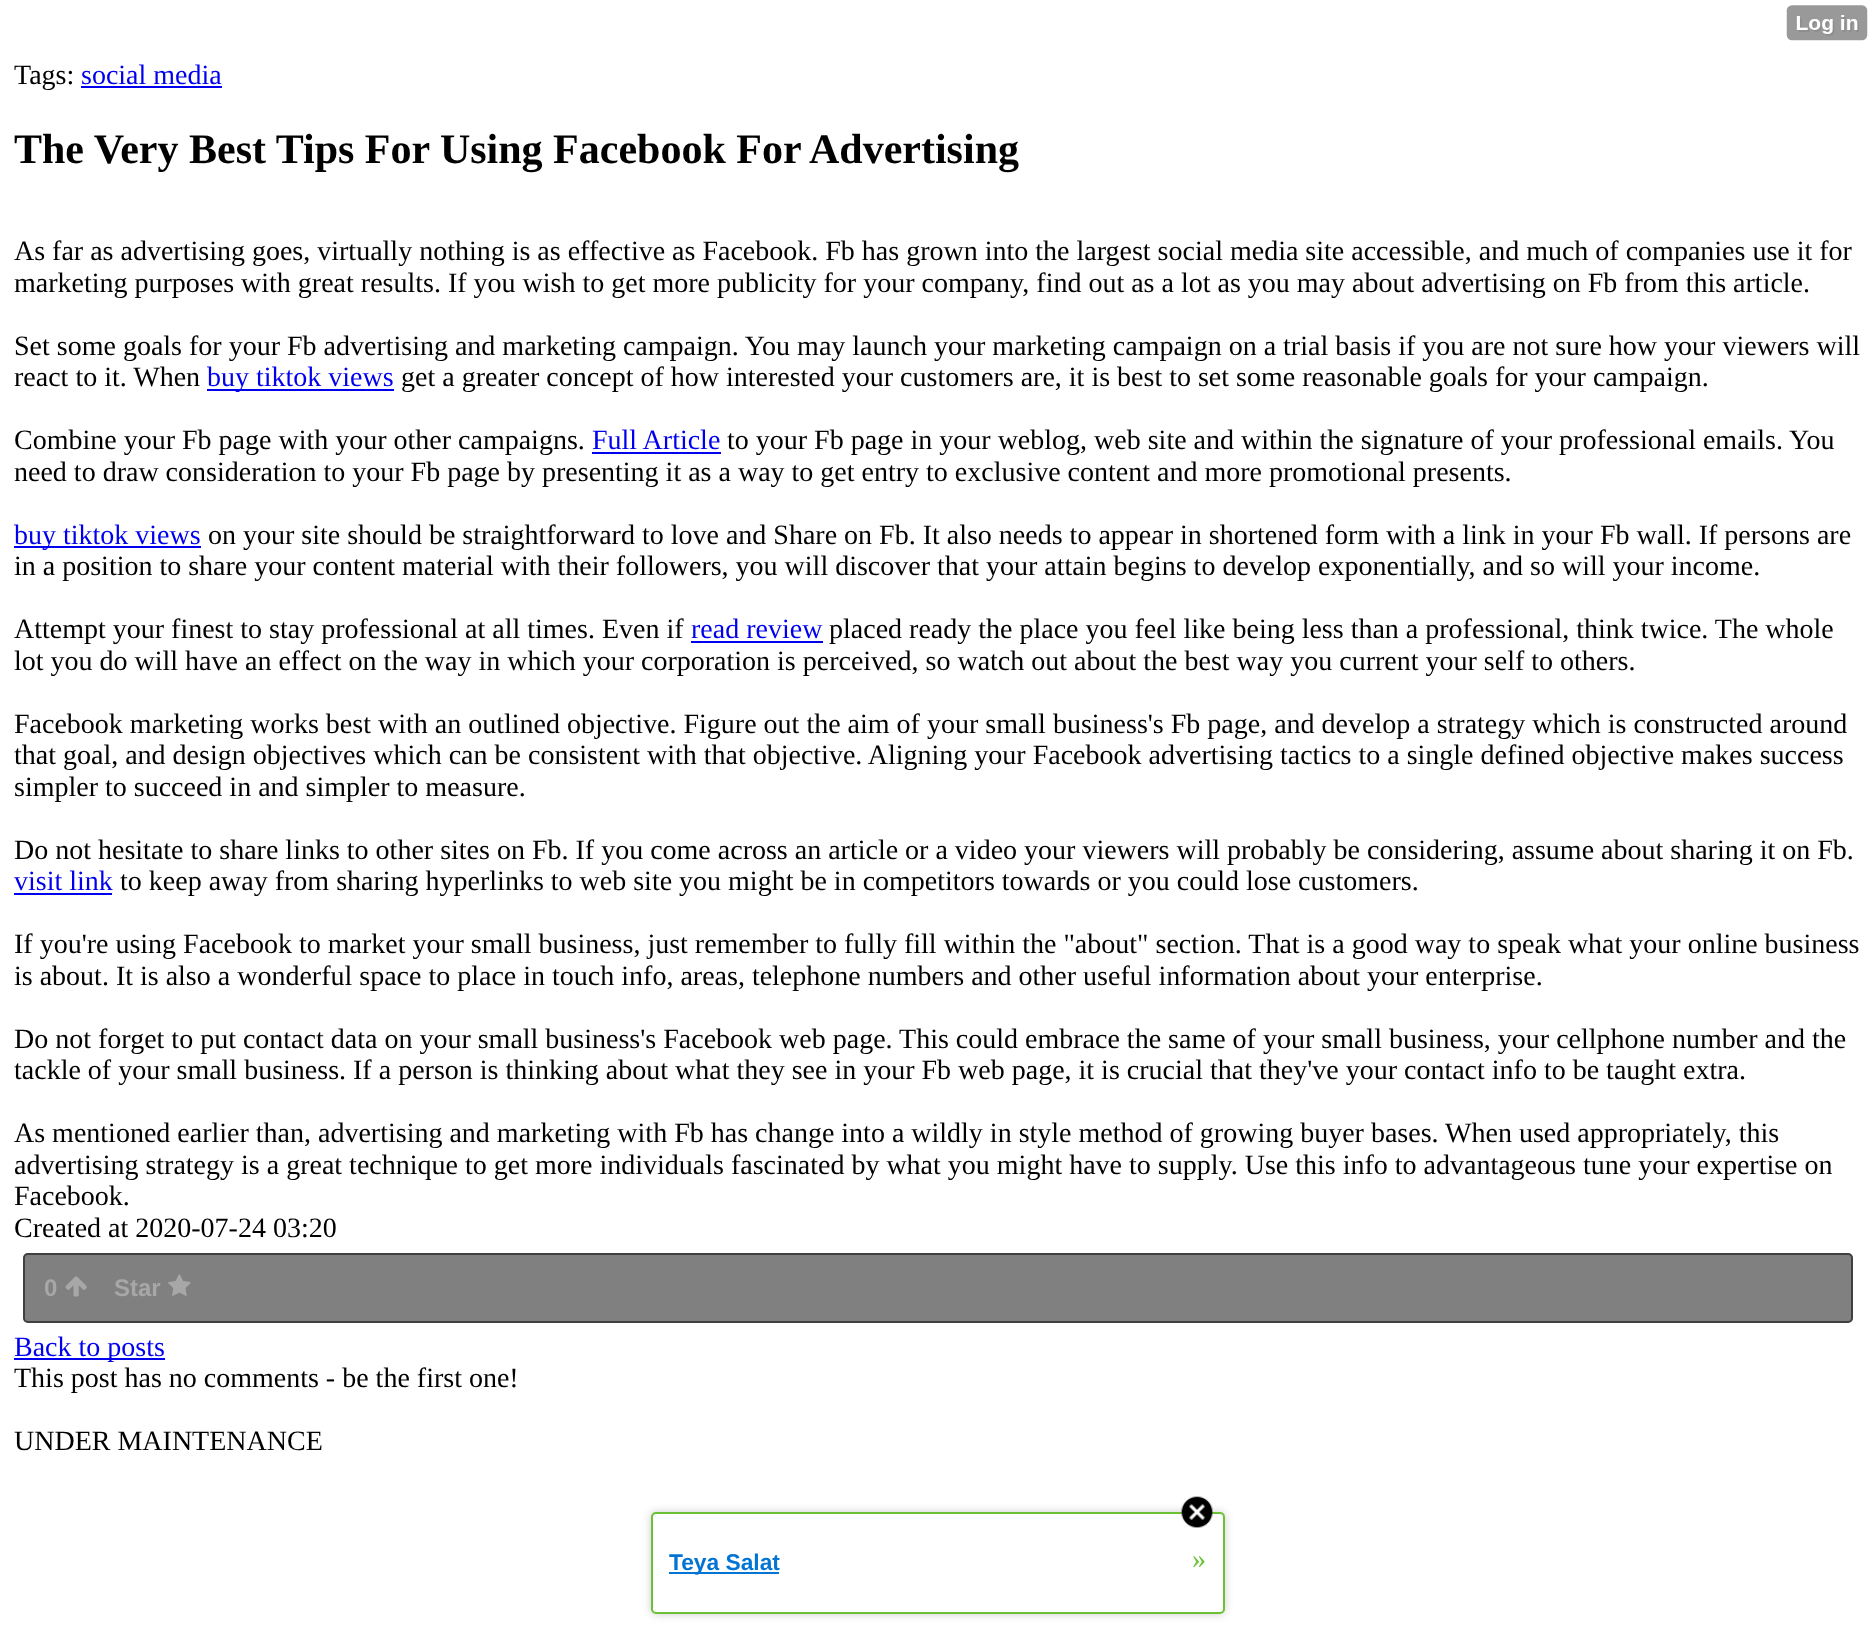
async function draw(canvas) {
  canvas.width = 1876;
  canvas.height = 1632;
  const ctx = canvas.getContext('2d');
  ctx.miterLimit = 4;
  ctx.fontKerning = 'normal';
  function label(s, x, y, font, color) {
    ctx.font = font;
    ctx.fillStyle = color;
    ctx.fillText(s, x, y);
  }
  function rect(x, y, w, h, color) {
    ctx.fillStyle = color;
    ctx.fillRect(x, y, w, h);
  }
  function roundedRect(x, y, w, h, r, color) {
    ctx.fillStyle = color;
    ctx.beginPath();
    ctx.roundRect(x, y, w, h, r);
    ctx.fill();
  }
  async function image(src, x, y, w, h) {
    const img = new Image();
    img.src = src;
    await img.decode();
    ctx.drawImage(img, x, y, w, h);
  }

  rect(0, 0, 1876, 1632, '#fff');
  await image('assets/img1.png', 1786, 5, 82, 36);
  label('Tags:', 14, 84, '28px Liberation Serif', '#000');
  label('social media', 81, 84, '28px Liberation Serif', '#00e');
  rect(81, 86, 141, 2, '#00e');
  label('The Very Best Tips For Using Facebook For Advertising', 14, 163, 'bold 42px Liberation Serif', '#000');
  label('As far as advertising goes, virtually nothing is as effective as Facebook. Fb has grown into the largest social media site accessible, and much of companies use it for', 14, 260, '28px Liberation Serif', '#000');
  label('marketing purposes with great results. If you wish to get more publicity for your company, find out as a lot as you may about advertising on Fb from this article.', 14, 292, '28px Liberation Serif', '#000');
  label('Set some goals for your Fb advertising and marketing campaign. You may launch your marketing campaign on a trial basis if you are not sure how your viewers will', 14, 355, '28px Liberation Serif', '#000');
  label('react to it. When', 14, 386, '28px Liberation Serif', '#000');
  rect(207, 389, 187, 2, '#00e');
  label('buy tiktok views', 207, 386, '28px Liberation Serif', '#00e');
  label('get a greater concept of how interested your customers are, it is best to set some reasonable goals for your campaign.', 401, 386, '28px Liberation Serif', '#000');
  label('Combine your Fb page with your other campaigns.', 14, 449, '28px Liberation Serif', '#000');
  label('Full Article', 592, 449, '28px Liberation Serif', '#00e');
  rect(592, 452, 129, 2, '#00e');
  label('to your Fb page in your weblog, web site and within the signature of your professional emails. You', 727, 449, '28px Liberation Serif', '#000');
  label('need to draw consideration to your Fb page by presenting it as a way to get entry to exclusive content and more promotional presents.', 14, 481, '28px Liberation Serif', '#000');
  rect(14, 546, 187, 2, '#00e');
  label('buy tiktok views', 14, 544, '28px Liberation Serif', '#00e');
  label('on your site should be straightforward to love and Share on Fb. It also needs to appear in shortened form with a link in your Fb wall. If persons are', 208, 544, '28px Liberation Serif', '#000');
  label('in a position to share your content material with their followers, you will discover that your attain begins to develop exponentially, and so will your income.', 14, 575, '28px Liberation Serif', '#000');
  label('Attempt your finest to stay professional at all times. Even if', 14, 638, '28px Liberation Serif', '#000');
  label('read review', 691, 638, '28px Liberation Serif', '#00e');
  rect(691, 641, 132, 2, '#00e');
  label('placed ready the place you feel like being less than a professional, think twice. The whole', 829, 638, '28px Liberation Serif', '#000');
  label('lot you do will have an effect on the way in which your corporation is perceived, so watch out about the best way you current your self to others.', 14, 670, '28px Liberation Serif', '#000');
  label('Facebook marketing works best with an outlined objective. Figure out the aim of your small business\'s Fb page, and develop a strategy which is constructed around', 14, 733, '28px Liberation Serif', '#000');
  label('that goal, and design objectives which can be consistent with that objective. Aligning your Facebook advertising tactics to a single defined objective makes success', 14, 764, '28px Liberation Serif', '#000');
  label('simpler to succeed in and simpler to measure.', 14, 796, '28px Liberation Serif', '#000');
  label('Do not hesitate to share links to other sites on Fb. If you come across an article or a video your viewers will probably be considering, assume about sharing it on Fb.', 14, 859, '28px Liberation Serif', '#000');
  label('visit link', 14, 890, '28px Liberation Serif', '#00e');
  rect(14, 893, 98, 2, '#00e');
  label('to keep away from sharing hyperlinks to web site you might be in competitors towards or you could lose customers.', 120, 890, '28px Liberation Serif', '#000');
  label('If you\'re using Facebook to market your small business, just remember to fully fill within the "about" section. That is a good way to speak what your online business', 14, 953, '28px Liberation Serif', '#000');
  label('is about. It is also a wonderful space to place in touch info, areas, telephone numbers and other useful information about your enterprise.', 14, 985, '28px Liberation Serif', '#000');
  label('Do not forget to put contact data on your small business\'s Facebook web page. This could embrace the same of your small business, your cellphone number and the', 14, 1048, '28px Liberation Serif', '#000');
  label('tackle of your small business. If a person is thinking about what they see in your Fb web page, it is crucial that they\'ve your contact info to be taught extra.', 14, 1079, '28px Liberation Serif', '#000');
  label('As mentioned earlier than, advertising and marketing with Fb has change into a wildly in style method of growing buyer bases. When used appropriately, this', 14, 1142, '28px Liberation Serif', '#000');
  label('advertising strategy is a great technique to get more individuals fascinated by what you might have to supply. Use this info to advantageous tune your expertise on', 14, 1174, '28px Liberation Serif', '#000');
  label('Facebook.', 14, 1205, '28px Liberation Serif', '#000');
  label('Created at 2020-07-24 03:20', 14, 1237, '28px Liberation Serif', '#000');
  roundedRect(23, 1253, 1830, 70, 5, '#808080');
  ctx.beginPath();
  ctx.roundRect(24, 1254, 1828, 68, 4);
  ctx.strokeStyle = '#00000080';
  ctx.lineWidth = 2;
  ctx.stroke();
  label('0', 44, 1296, 'bold 24px Liberation Sans', '#a7a7a7');
  await image('assets/img2.png', 65, 1276, 22, 21);
  label('Star', 114, 1296, 'bold 24px Liberation Sans', '#a7a7a7');
  await image('assets/img3.png', 168, 1274, 23, 22);
  rect(14, 1358, 151, 2, '#00e');
  label('Back to posts', 14, 1356, '28px Liberation Serif', '#00e');
  label('This post has no comments - be the first one!', 14, 1387, '28px Liberation Serif', '#000');
  label('UNDER MAINTENANCE', 14, 1450, '28px Liberation Serif', '#000');
  ctx.fillStyle = '#00000033';
  ctx.filter = 'blur(4.5px)';
  ctx.beginPath();
  ctx.roundRect(651, 1512, 574, 102, 5);
  ctx.fill();
  ctx.filter = 'none';
  ctx.fillStyle = '#fff';
  ctx.beginPath();
  ctx.roundRect(652, 1513, 572, 100, 4);
  ctx.fill();
  ctx.strokeStyle = '#6bc135';
  ctx.stroke();
  await image('assets/img4.png', 1181, 1496, 32, 32);
  rect(669, 1572, 110, 2, '#0274d4');
  label('Teya Salat', 669, 1570, 'bold 22.75px Liberation Sans', '#0274d4');
  label('»', 1192, 1568, '28px Liberation Serif', '#6bc135');
}

draw(document.querySelector('canvas'));
